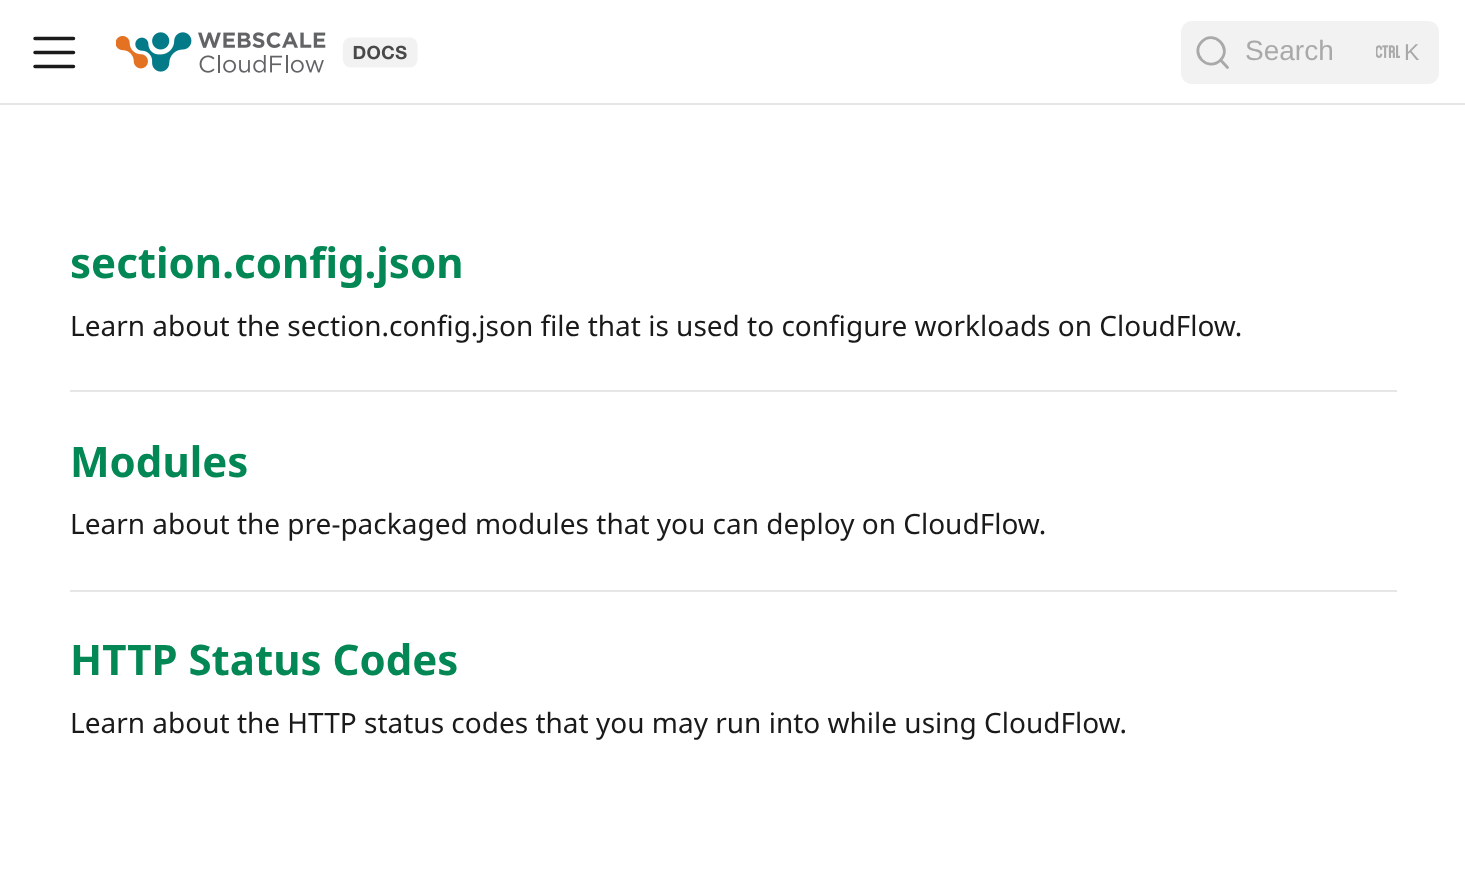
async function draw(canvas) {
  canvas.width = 1465;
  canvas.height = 870;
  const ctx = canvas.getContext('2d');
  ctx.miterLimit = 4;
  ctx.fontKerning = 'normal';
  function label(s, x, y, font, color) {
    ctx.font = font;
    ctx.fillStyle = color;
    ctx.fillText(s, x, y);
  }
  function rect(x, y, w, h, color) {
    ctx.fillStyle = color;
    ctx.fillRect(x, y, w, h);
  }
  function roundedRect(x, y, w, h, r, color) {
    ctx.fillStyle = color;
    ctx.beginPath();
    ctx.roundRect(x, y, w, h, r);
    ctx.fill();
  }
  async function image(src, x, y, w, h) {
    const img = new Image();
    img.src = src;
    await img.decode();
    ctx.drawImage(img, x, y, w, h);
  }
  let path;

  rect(0, 0, 1465, 870, '#fff');
  rect(0, 103, 1465, 2, '#e6e6e6');
  path = new Path2D('M35 38.5H73.5M35 52.5H73.5M35 66.5H73.5');
  ctx.strokeStyle = '#1a1a1a';
  ctx.lineWidth = 3.5;
  ctx.lineCap = 'round';
  ctx.stroke(path);
  await image('assets/img1.png', 116, 32, 302, 41);
  roundedRect(1181, 21, 258, 63, 11, '#f2f2f2');
  path = new Path2D('M1220.5 60L1227.5 67.5L1220.5 60C1208 72.5 1189.5 54 1202 41.5C1214 29.5 1232.5 48 1220.5 60Z');
  ctx.strokeStyle = '#a9a9a9';
  ctx.lineWidth = 2.8;
  ctx.lineJoin = 'round';
  ctx.stroke(path);
  label('Search', 1245, 60, '28px Liberation Sans', '#a9a9a9');
  await image('assets/img2.png', 1376, 45, 24, 13);
  label('K', 1404, 60, '23px Liberation Sans', '#a9a9a9');
  rect(70, 390, 1327, 2, '#e6e6e6');
  label('section.config.json', 70, 278, 'bold 42px Noto Sans', '#038754');
  label('Learn about the section.config.json file that is used to configure workloads on CloudFlow.', 70, 336, '28px Noto Sans', '#1a1a1a');
  rect(70, 590, 1327, 2, '#e6e6e6');
  label('Modules', 70, 477, 'bold 42px Noto Sans', '#038754');
  label('Learn about the pre-packaged modules that you can deploy on CloudFlow.', 70, 534, '28px Noto Sans', '#1a1a1a');
  label('HTTP Status Codes', 70, 675, 'bold 42px Noto Sans', '#038754');
  label('Learn about the HTTP status codes that you may run into while using CloudFlow.', 70, 733, '28px Noto Sans', '#1a1a1a');
}

draw(document.querySelector('canvas'));
